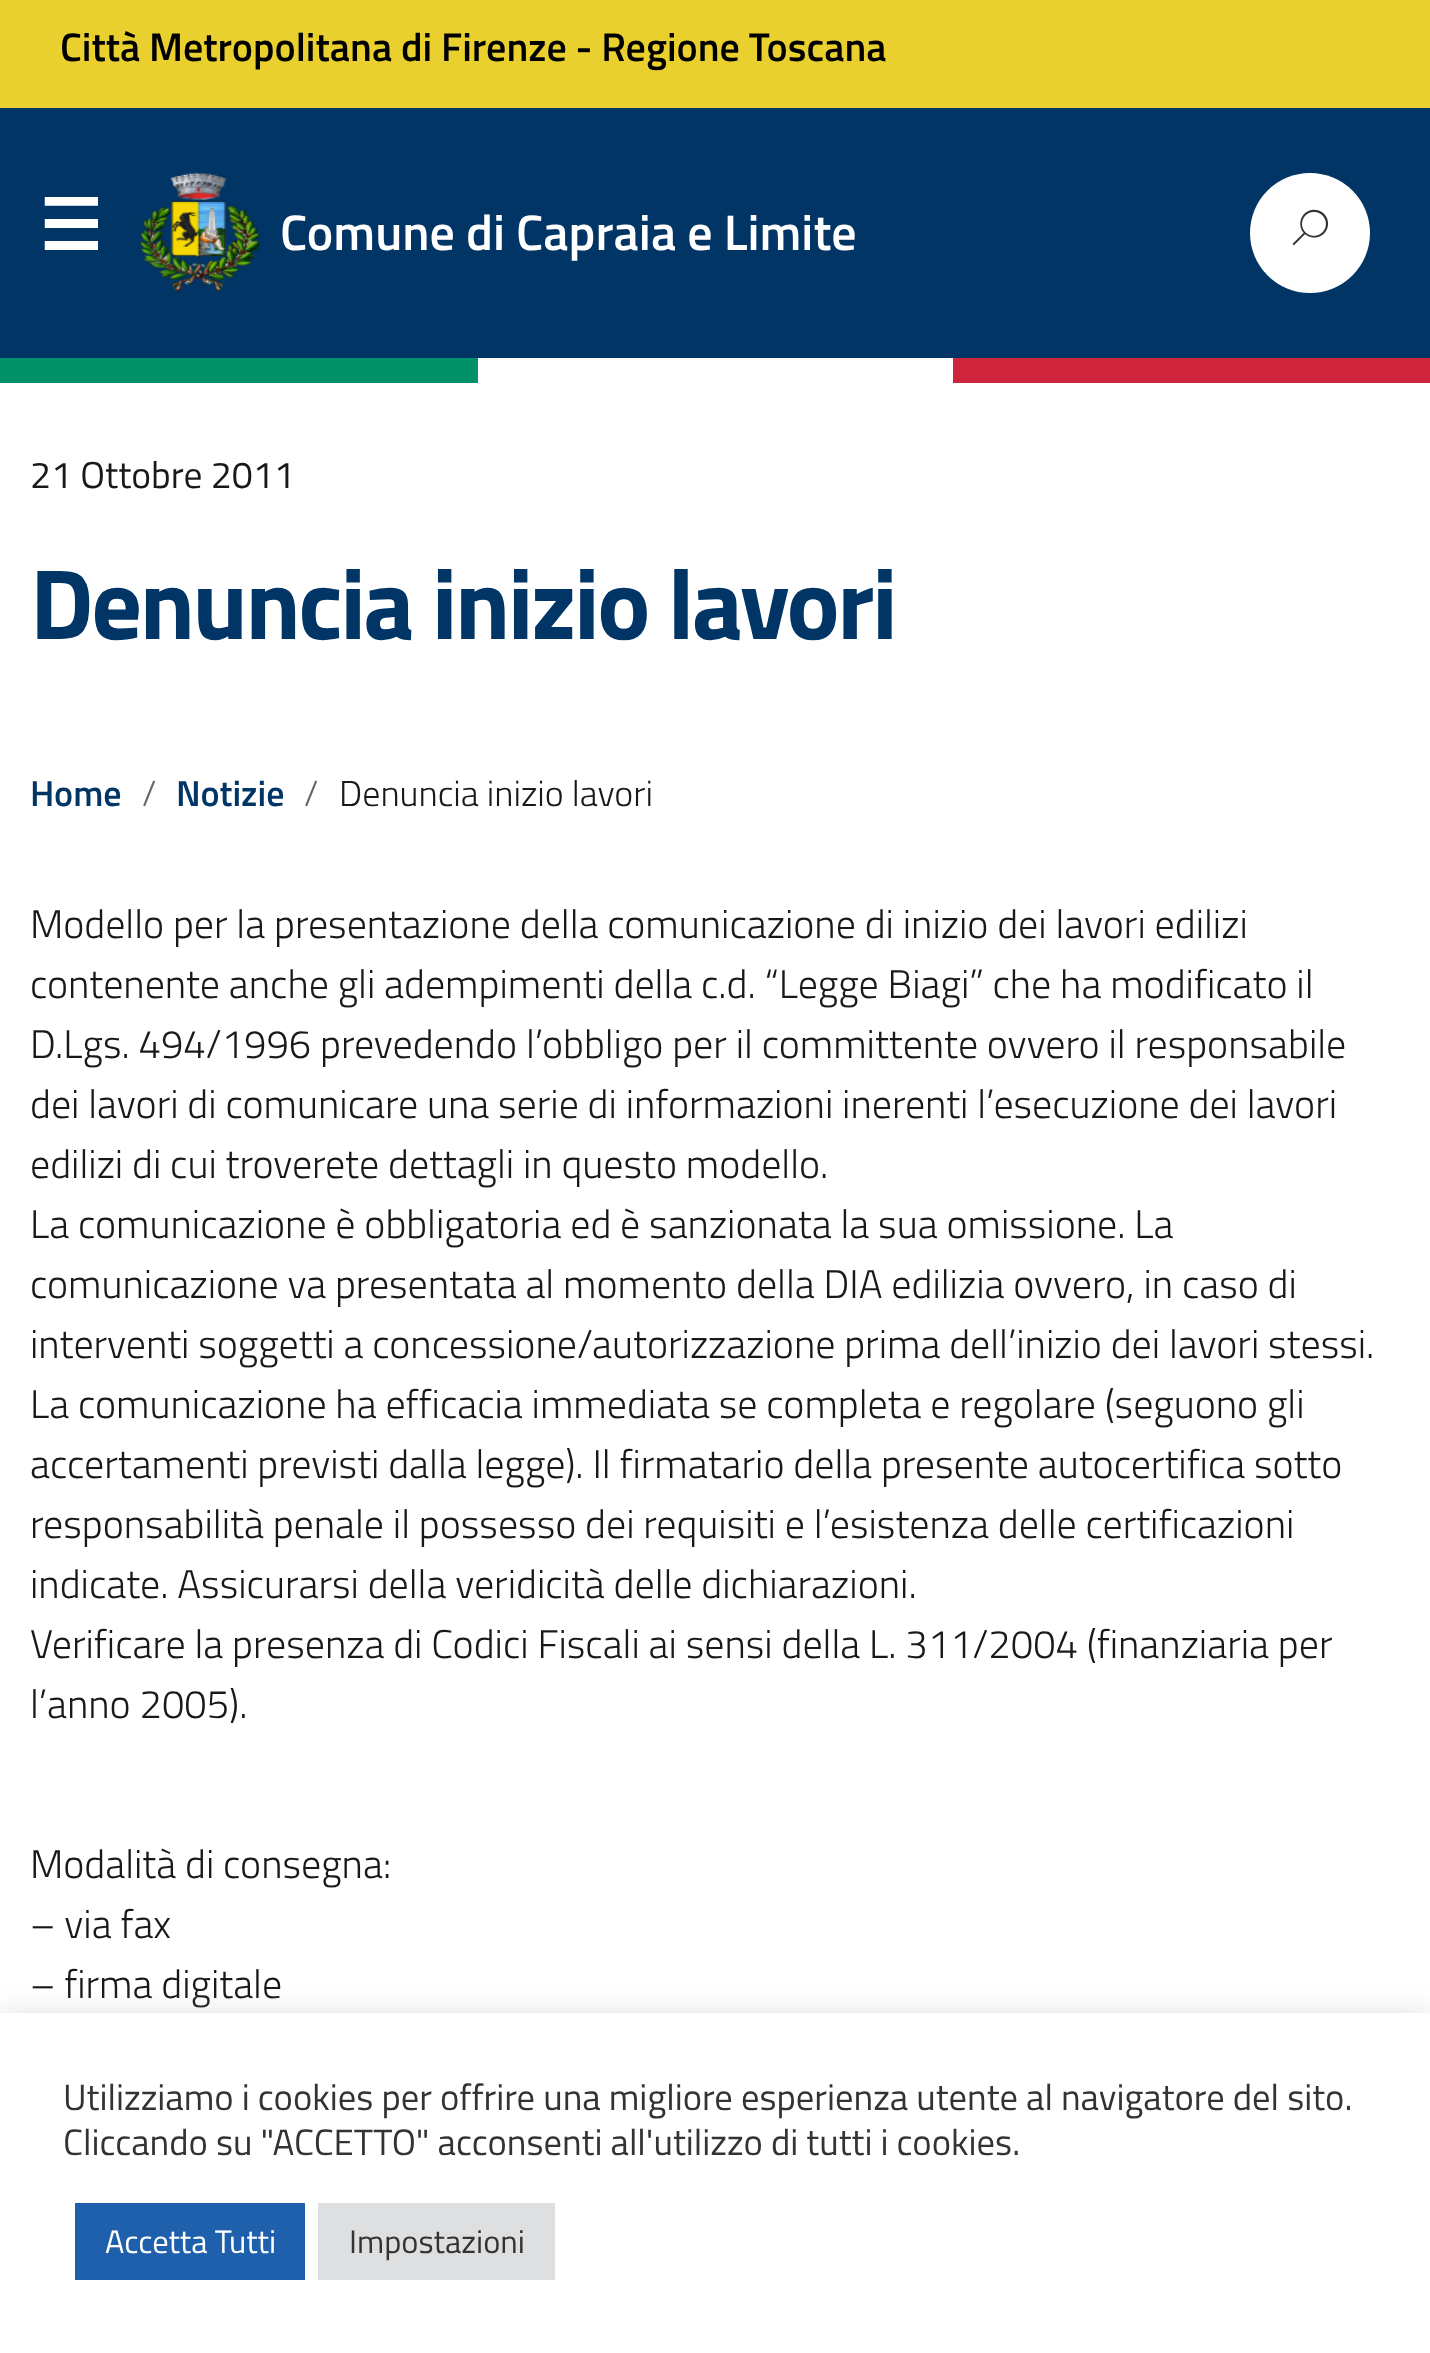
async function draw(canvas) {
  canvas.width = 1430;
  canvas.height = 2353;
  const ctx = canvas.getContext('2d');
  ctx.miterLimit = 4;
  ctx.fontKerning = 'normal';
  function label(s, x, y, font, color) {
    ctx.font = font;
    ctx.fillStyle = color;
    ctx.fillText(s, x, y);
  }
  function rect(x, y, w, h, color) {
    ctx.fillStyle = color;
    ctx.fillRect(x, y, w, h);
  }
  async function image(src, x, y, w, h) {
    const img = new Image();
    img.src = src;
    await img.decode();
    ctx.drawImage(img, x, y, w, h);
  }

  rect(0, 0, 1430, 2353, '#fff');
  rect(0, 108, 1430, 250, '#003566');
  rect(0, 0, 1430, 108, '#e9d02e');
  label('Città Metropolitana di Firenze - Regione Toscana', 60, 61, '600 40px Titillium Web', '#000');
  label('☰', 39, 250, 'bold 70px DejaVu Sans', '#fff');
  await image('assets/img1.png', 140, 172, 120, 121);
  label('Comune di Capraia e Limite', 280, 250, '600 50px Titillium Web', '#fff');
  ctx.beginPath();
  ctx.arc(1310, 233, 60, 0, 2 * Math.PI);
  ctx.fill();
  await image('assets/img2.png', 1292, 209, 37, 37);
  rect(0, 358, 478, 25, '#009169');
  rect(953, 358, 477, 25, '#ce253c');
  label('21 Ottobre 2011', 30, 488, '37.5px Titillium Web', '#19191a');
  ctx.letterSpacing = '-2.5px';
  label('Denuncia inizio lavori', 30, 639, 'bold 100px Titillium Web', '#003566');
  ctx.letterSpacing = '0px';
  label('Home', 30, 806, '600 36px Titillium Web', '#003566');
  label('/', 142, 806, '300 36px Titillium Web', '#656566');
  label('Notizie', 176, 806, '600 36px Titillium Web', '#003566');
  label('/', 304, 806, '300 36px Titillium Web', '#656566');
  label('Denuncia inizio lavori', 339, 806, '300 36px Titillium Web', '#19191a');
  label('Modello per la presentazione della comunicazione di inizio dei lavori edilizi', 30, 938, '300 40px Titillium Web', '#19191a');
  label('contenente anche gli adempimenti della c.d. “Legge Biagi” che ha modificato il', 30, 998, '300 40px Titillium Web', '#19191a');
  label('D.Lgs. 494/1996 prevedendo l’obbligo per il committente ovvero il responsabile', 30, 1058, '300 40px Titillium Web', '#19191a');
  label('dei lavori di comunicare una serie di informazioni inerenti l’esecuzione dei lavori', 30, 1118, '300 40px Titillium Web', '#19191a');
  label('edilizi di cui troverete dettagli in questo modello.', 30, 1178, '300 40px Titillium Web', '#19191a');
  label('La comunicazione è obbligatoria ed è sanzionata la sua omissione. La', 30, 1238, '300 40px Titillium Web', '#19191a');
  label('comunicazione va presentata al momento della DIA edilizia ovvero, in caso di', 30, 1298, '300 40px Titillium Web', '#19191a');
  label('interventi soggetti a concessione/autorizzazione prima dell’inizio dei lavori stessi.', 30, 1358, '300 40px Titillium Web', '#19191a');
  label('La comunicazione ha efficacia immediata se completa e regolare (seguono gli', 30, 1418, '300 40px Titillium Web', '#19191a');
  label('accertamenti previsti dalla legge). Il firmatario della presente autocertifica sotto', 30, 1478, '300 40px Titillium Web', '#19191a');
  label('responsabilità penale il possesso dei requisiti e l’esistenza delle certificazioni', 30, 1538, '300 40px Titillium Web', '#19191a');
  label('indicate. Assicurarsi della veridicità delle dichiarazioni.', 30, 1598, '300 40px Titillium Web', '#19191a');
  label('Verificare la presenza di Codici Fiscali ai sensi della L. 311/2004 (finanziaria per', 30, 1658, '300 40px Titillium Web', '#19191a');
  label('l’anno 2005).', 30, 1718, '300 40px Titillium Web', '#19191a');
  label('Modalità di consegna:', 30, 1878, '300 40px Titillium Web', '#19191a');
  label('– via fax', 30, 1938, '300 40px Titillium Web', '#19191a');
  label('– firma digitale', 30, 1998, '300 40px Titillium Web', '#19191a');
  ctx.fillStyle = '#acabab4d';
  ctx.filter = 'blur(12.5px)';
  ctx.beginPath();
  ctx.rect(0, 2010, 1430, 343);
  ctx.fill();
  ctx.filter = 'none';
  rect(0, 2013, 1430, 340, '#fff');
  label('Utilizziamo i cookies per offrire una migliore esperienza utente al navigatore del sito.', 63, 2110, '36.65px Titillium Web', '#333');
  label('Cliccando su "ACCETTO" acconsenti all\'utilizzo di tutti i cookies.', 63, 2155, '36.65px Titillium Web', '#333');
  rect(75, 2203, 230, 77, '#1e60ac');
  label('Accetta Tutti', 105, 2253, '32.5px Titillium Web', '#fff');
  rect(318, 2203, 237, 77, '#dedfe0');
  label('Impostazioni', 349, 2253, '32.5px Titillium Web', '#333');
}

draw(document.querySelector('canvas'));
